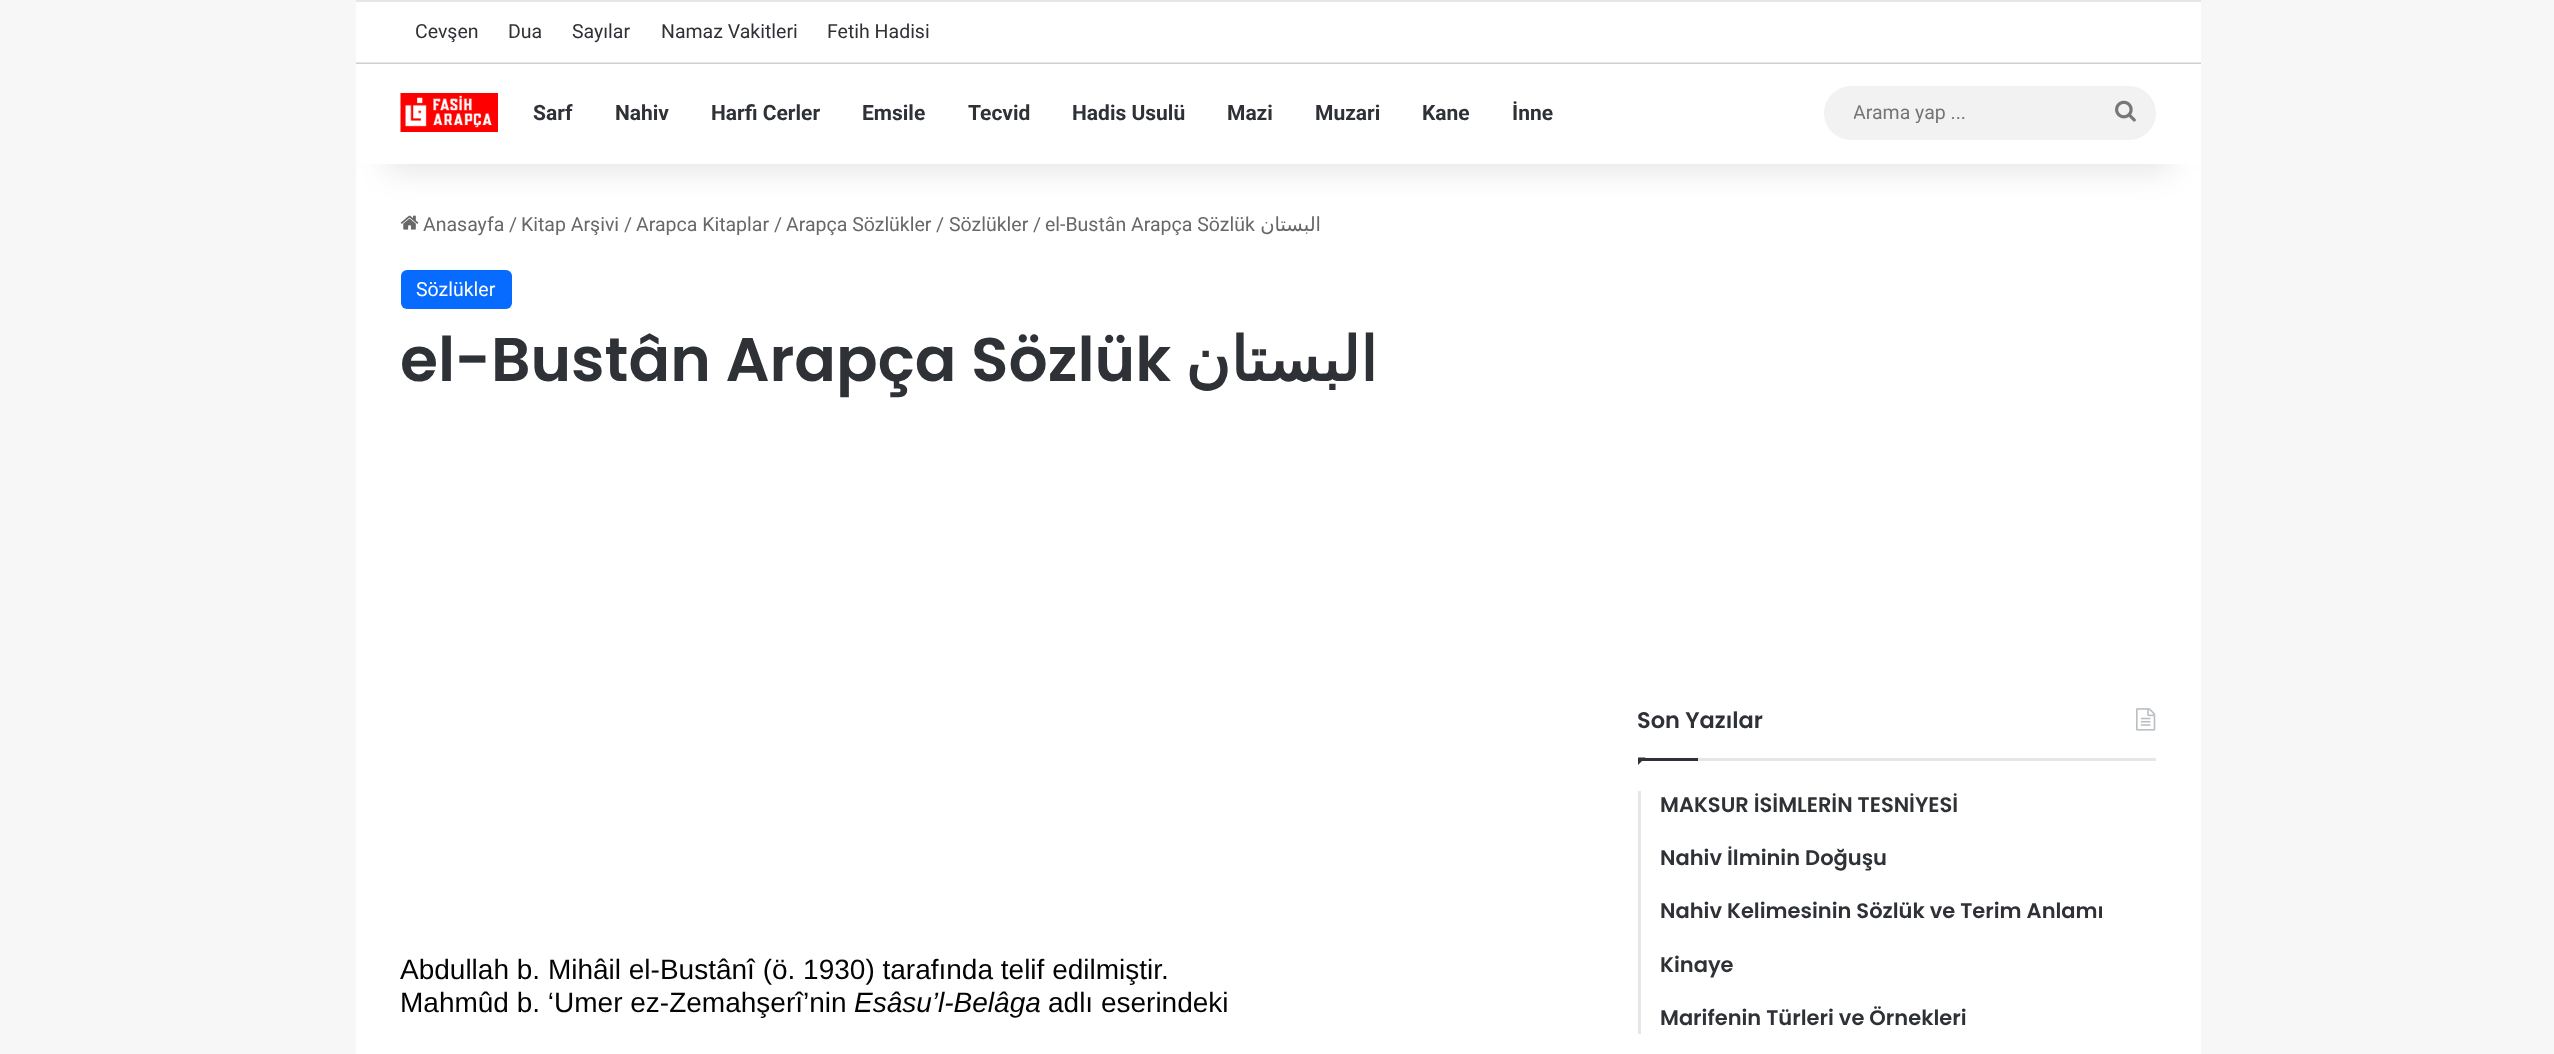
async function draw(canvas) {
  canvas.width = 2554;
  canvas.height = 1054;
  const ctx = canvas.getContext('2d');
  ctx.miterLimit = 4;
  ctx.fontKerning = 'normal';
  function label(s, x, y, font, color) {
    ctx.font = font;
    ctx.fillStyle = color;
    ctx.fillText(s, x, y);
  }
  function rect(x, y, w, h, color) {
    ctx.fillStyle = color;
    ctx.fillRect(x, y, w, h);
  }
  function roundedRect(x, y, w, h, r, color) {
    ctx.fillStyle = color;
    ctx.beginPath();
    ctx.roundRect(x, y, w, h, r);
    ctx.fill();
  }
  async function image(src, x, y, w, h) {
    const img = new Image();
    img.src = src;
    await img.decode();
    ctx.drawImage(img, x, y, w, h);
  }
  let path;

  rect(0, 0, 2554, 1054, '#f7f7f7');
  rect(356, 164, 1845, 890, '#fff');
  await image('assets/img3.png', 400, 215, 19, 15);
  ctx.fillStyle = '#0000001a';
  ctx.filter = 'blur(15px)';
  ctx.beginPath();
  ctx.rect(386, 68, 1785, 103);
  ctx.fill();
  ctx.filter = 'none';
  rect(356, 64, 1845, 100, '#fff');
  rect(356, 2, 1845, 60, '#fff');
  rect(356, 62, 1845, 1, '#e6e6e6');
  rect(356, 0, 1845, 2, '#e6e6e6');
  label('Cevşen', 415, 38, '19.5px Roboto', '#2e3136');
  label('Dua', 508, 38, '19.5px Roboto', '#2e3136');
  label('Sayılar', 572, 38, '19.5px Roboto', '#2e3136');
  label('Namaz Vakitleri', 661, 38, '19.5px Roboto', '#2e3136');
  label('Fetih Hadisi', 827, 38, '19.5px Roboto', '#2e3136');
  rect(356, 63, 1845, 1, '#cfcfcf');
  await image('assets/img1.png', 400, 93, 98, 39);
  label('Sarf', 533, 120, 'bold 21px Roboto', '#2e3136');
  label('Nahiv', 615, 120, 'bold 21px Roboto', '#2e3136');
  label('Harfi Cerler', 711, 120, 'bold 21px Roboto', '#2e3136');
  label('Emsile', 862, 120, 'bold 21px Roboto', '#2e3136');
  label('Tecvid', 968, 120, 'bold 21px Roboto', '#2e3136');
  label('Hadis Usulü', 1072, 120, 'bold 21px Roboto', '#2e3136');
  label('Mazi', 1227, 120, 'bold 21px Roboto', '#2e3136');
  label('Muzari', 1315, 120, 'bold 21px Roboto', '#2e3136');
  label('Kane', 1422, 120, 'bold 21px Roboto', '#2e3136');
  label('İnne', 1512, 120, 'bold 21px Roboto', '#2e3136');
  roundedRect(1824, 86, 332, 54, 27, '#f2f2f2');
  ctx.save();
  ctx.beginPath();
  ctx.rect(1854, 101, 249, 22);
  ctx.clip();
  label('Arama yap ...', 1853, 119, '19.5px Roboto', '#757575');
  ctx.restore();
  await image('assets/img2.png', 2115, 100, 21, 22);
  label('Anasayfa', 423, 231, '19.5px Roboto', '#686868');
  label('/', 509, 231, '19.5px Roboto', '#686868');
  label('Kitap Arşivi', 521, 231, '19.5px Roboto', '#686868');
  label('/', 624, 231, '19.5px Roboto', '#686868');
  label('Arapca Kitaplar', 636, 231, '19.5px Roboto', '#686868');
  label('/', 774, 231, '19.5px Roboto', '#686868');
  label('Arapça Sözlükler', 786, 231, '19.5px Roboto', '#686868');
  label('/', 936, 231, '19.5px Roboto', '#686868');
  label('Sözlükler', 949, 231, '19.5px Roboto', '#686868');
  label('/', 1033, 231, '19.5px Roboto', '#686868');
  label('el-Bustân Arapça Sözlük', 1045, 231, '19.5px Roboto', '#686868');
  ctx.direction = 'rtl';
  label('البستان', 1321, 231, '19.5px DejaVu Sans', '#686868');
  roundedRect(401, 270, 111, 39, 6, '#086bff');
  ctx.direction = 'ltr';
  label('Sözlükler', 416, 296, '19.5px Roboto', '#fff');
  label('el-Bustân Arapça Sözlük', 400, 381, '600 61.5px Poppins', '#2e3136');
  ctx.direction = 'rtl';
  label('البستان', 1377, 381, 'bold 61.5px DejaVu Sans', '#2e3136');
  ctx.direction = 'ltr';
  label('Abdullah b. Mihâil el-Bustânî (ö. 1930) tarafında telif edilmiştir.', 400, 979, '28px Liberation Sans', '#030303');
  label('Mahmûd b. ‘Umer ez-Zemahşerî’nin', 400, 1012, '28px Liberation Sans', '#030303');
  label('Esâsu’l-Belâga', 854, 1012, 'italic 28px Liberation Sans', '#030303');
  label('adlı eserindeki', 1048, 1012, '28px Liberation Sans', '#030303');
  rect(1698, 758, 458, 3, '#e6e6e6');
  label('Son Yazılar', 1637, 728, '600 22.5px Poppins', '#2e3136');
  await image('assets/img4.png', 2136, 708, 20, 23);
  path = new Path2D('M1638 757.5H1645.5L1638 765Z');
  ctx.fill(path);
  rect(1638, 758, 60, 3, '#2e3136');
  rect(1638, 791, 3, 243, '#e6e6e6');
  label('MAKSUR İSİMLERİN TESNİYESİ', 1660, 812, '600 21px Poppins', '#2e3136');
  label('Nahiv İlminin Doğuşu', 1660, 865, '600 21px Poppins', '#2e3136');
  label('Nahiv Kelimesinin Sözlük ve Terim Anlamı', 1660, 918, '600 21px Poppins', '#2e3136');
  label('Kinaye', 1660, 972, '600 21px Poppins', '#2e3136');
  label('Marifenin Türleri ve Örnekleri', 1660, 1025, '600 21px Poppins', '#2e3136');
}

draw(document.querySelector('canvas'));
